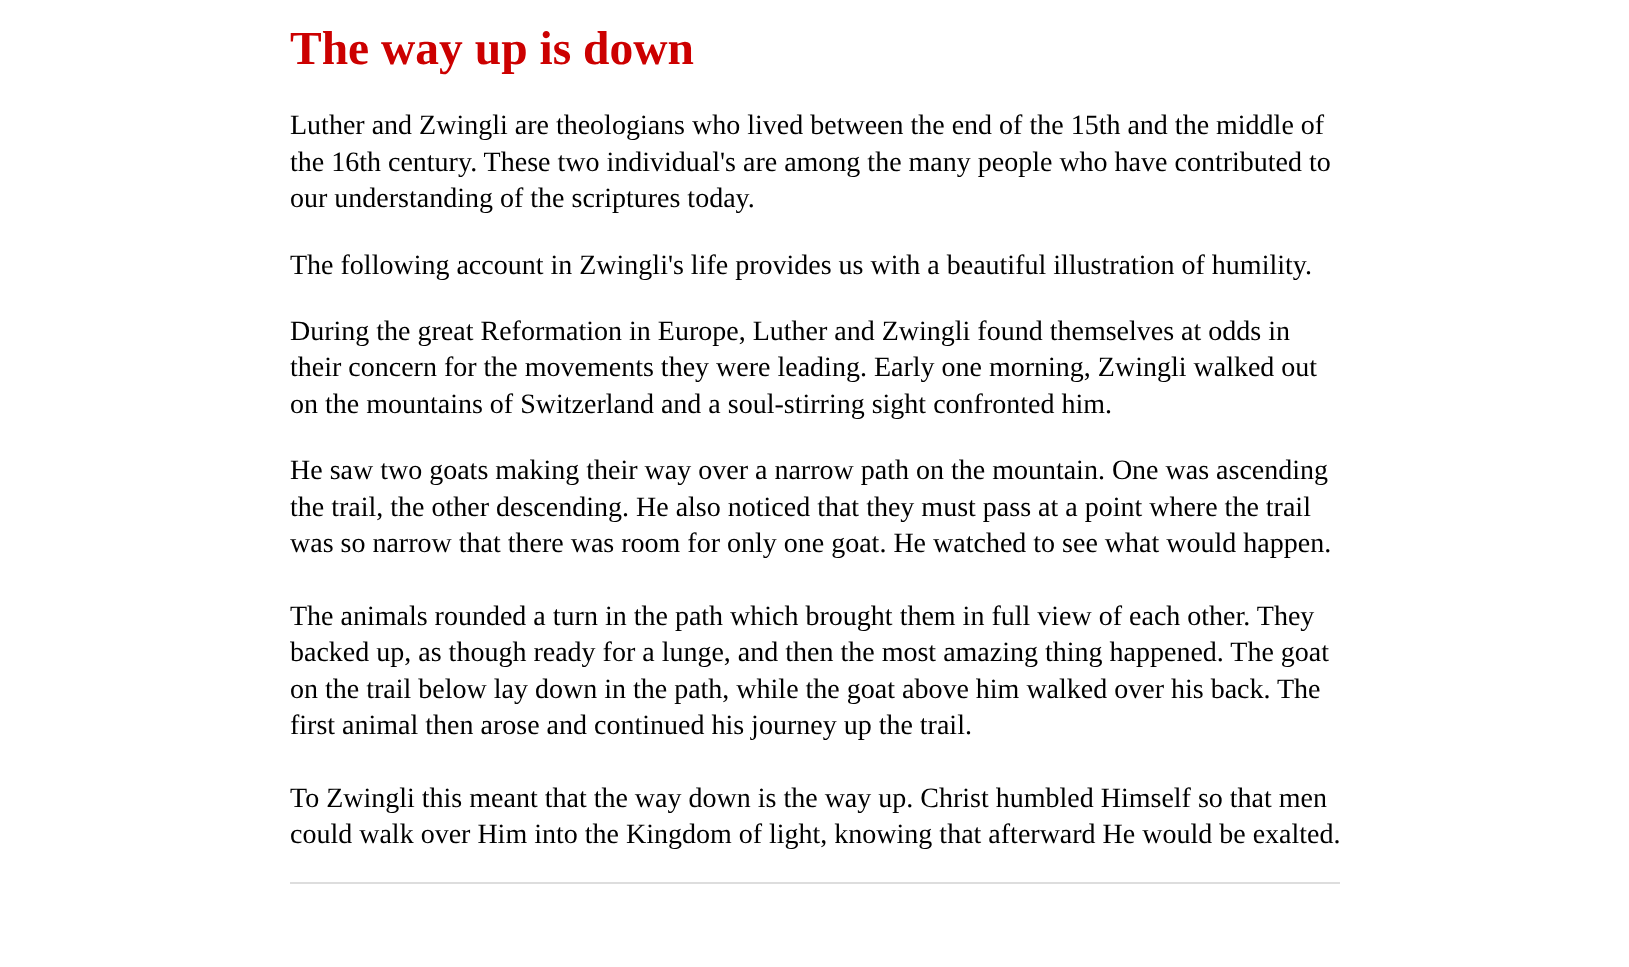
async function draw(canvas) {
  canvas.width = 1629;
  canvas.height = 967;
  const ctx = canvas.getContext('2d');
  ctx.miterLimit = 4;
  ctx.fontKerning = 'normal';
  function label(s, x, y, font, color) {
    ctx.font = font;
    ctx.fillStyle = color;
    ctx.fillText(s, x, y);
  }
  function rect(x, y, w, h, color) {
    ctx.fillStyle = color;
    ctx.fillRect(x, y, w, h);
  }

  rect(0, 0, 1629, 967, '#fff');
  label('The way up is down', 290, 64, 'bold 47.5px Liberation Serif', '#c00');
  label('Luther and Zwingli are theologians who lived between the end of the 15th and the middle of', 290, 134, '28px Liberation Serif', '#000');
  label('the 16th century. These two individual\'s are among the many people who have contributed to', 290, 171, '28px Liberation Serif', '#000');
  label('our understanding of the scriptures today.', 290, 207, '28px Liberation Serif', '#000');
  label('The following account in Zwingli\'s life provides us with a beautiful illustration of humility.', 290, 274, '28px Liberation Serif', '#000');
  label('During the great Reformation in Europe, Luther and Zwingli found themselves at odds in', 290, 340, '28px Liberation Serif', '#000');
  label('their concern for the movements they were leading. Early one morning, Zwingli walked out', 290, 376, '28px Liberation Serif', '#000');
  label('on the mountains of Switzerland and a soul-stirring sight confronted him.', 290, 413, '28px Liberation Serif', '#000');
  label('He saw two goats making their way over a narrow path on the mountain. One was ascending', 290, 479, '28px Liberation Serif', '#000');
  label('the trail, the other descending. He also noticed that they must pass at a point where the trail', 290, 516, '28px Liberation Serif', '#000');
  label('was so narrow that there was room for only one goat. He watched to see what would happen.', 290, 552, '28px Liberation Serif', '#000');
  label('The animals rounded a turn in the path which brought them in full view of each other. They', 290, 625, '28px Liberation Serif', '#000');
  label('backed up, as though ready for a lunge, and then the most amazing thing happened. The goat', 290, 661, '28px Liberation Serif', '#000');
  label('on the trail below lay down in the path, while the goat above him walked over his back. The', 290, 698, '28px Liberation Serif', '#000');
  label('first animal then arose and continued his journey up the trail.', 290, 734, '28px Liberation Serif', '#000');
  label('To Zwingli this meant that the way down is the way up. Christ humbled Himself so that men', 290, 807, '28px Liberation Serif', '#000');
  label('could walk over Him into the Kingdom of light, knowing that afterward He would be exalted.', 290, 843, '28px Liberation Serif', '#000');
  rect(290, 882, 1050, 2, '#ddd');
}

draw(document.querySelector('canvas'));
